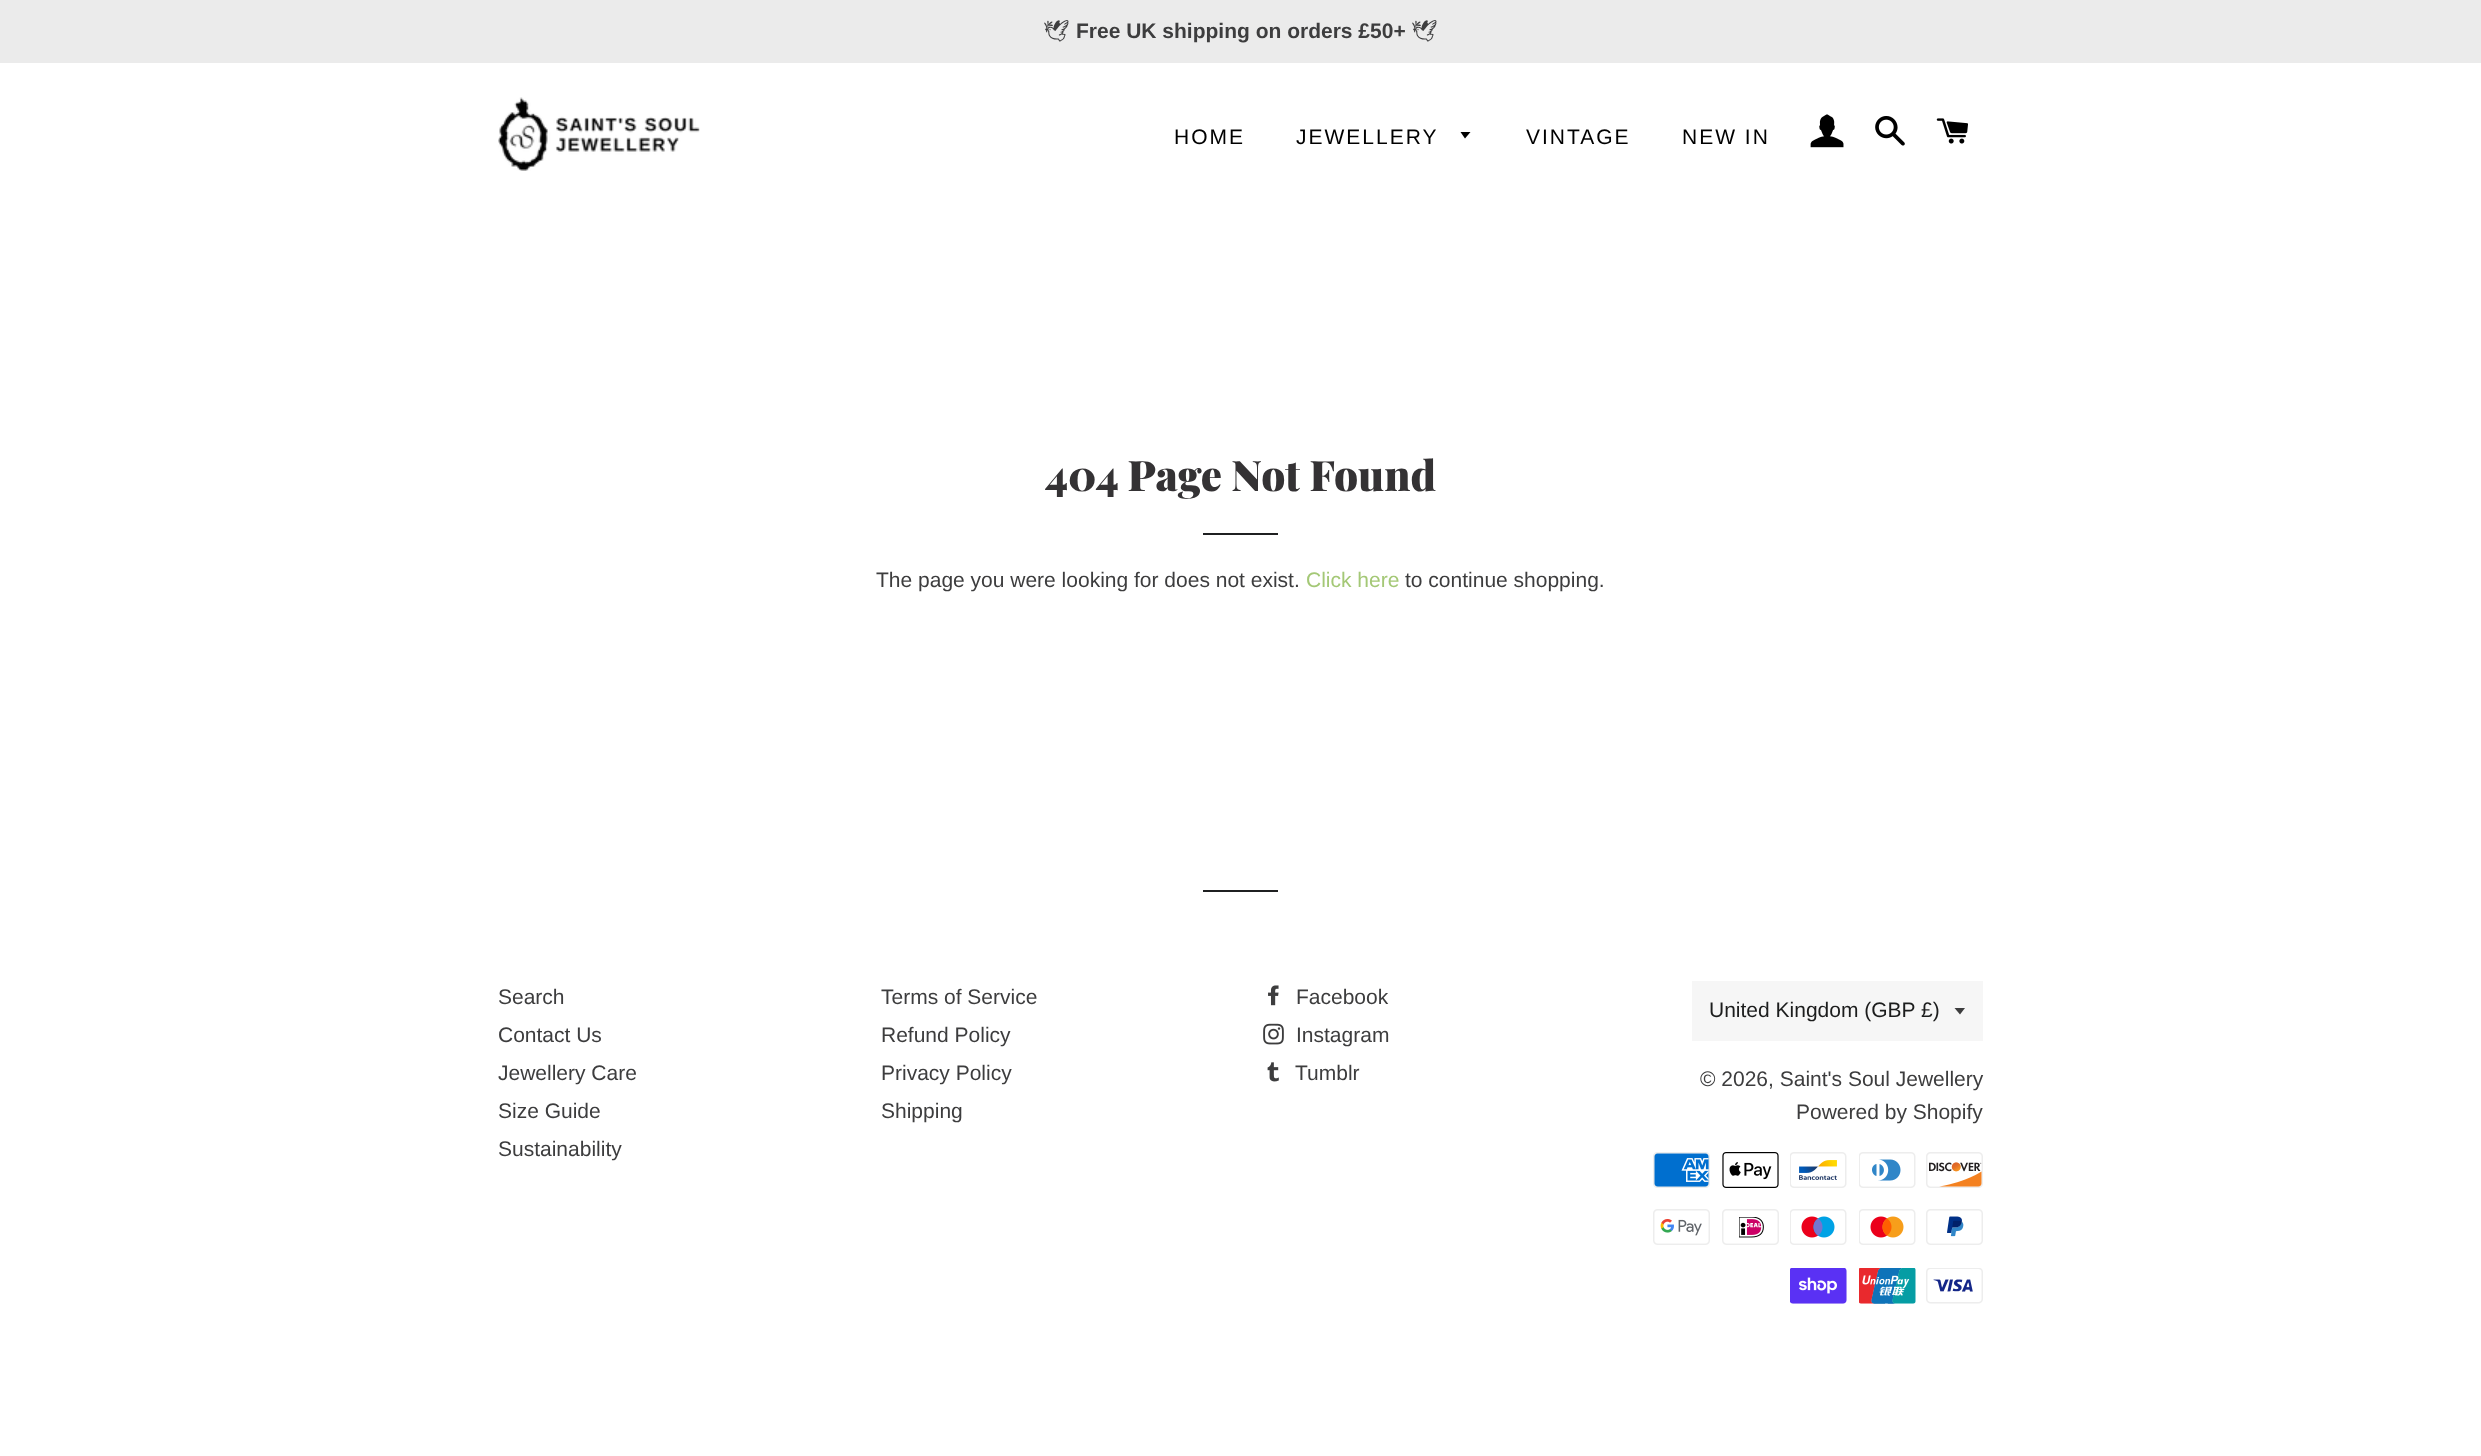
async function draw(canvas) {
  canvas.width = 2481;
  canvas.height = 1456;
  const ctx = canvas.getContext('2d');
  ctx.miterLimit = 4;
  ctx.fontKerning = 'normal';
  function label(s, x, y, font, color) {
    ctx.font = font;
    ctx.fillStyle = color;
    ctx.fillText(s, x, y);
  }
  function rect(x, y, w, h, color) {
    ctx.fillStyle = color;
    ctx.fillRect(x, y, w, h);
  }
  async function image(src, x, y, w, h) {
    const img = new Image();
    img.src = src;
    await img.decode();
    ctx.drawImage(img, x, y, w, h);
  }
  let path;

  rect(0, 0, 2481, 1456, '#fff');
  rect(0, 0, 2481, 63, '#ebebeb');
  label('🕊', 1043, 38, 'bold 21px Noto Emoji', '#3d3d3e');
  label('Free UK shipping on orders £50+', 1076, 38, 'bold 21px Liberation Sans', '#3d3d3e');
  label('🕊', 1411, 38, 'bold 21px Noto Emoji', '#3d3d3e');
  await image('assets/img1.png', 498, 97, 202, 74);
  ctx.letterSpacing = '2px';
  label('HOME', 1174, 144, '21px Liberation Sans', '#000');
  label('JEWELLERY', 1296, 144, '21px Liberation Sans', '#000');
  path = new Path2D('M1460.5 132L1465 138.5L1470.5 132Z');
  ctx.fill(path);
  label('VINTAGE', 1526, 144, '21px Liberation Sans', '#000');
  label('NEW IN', 1682, 144, '21px Liberation Sans', '#000');
  await image('assets/img2.png', 1810, 114, 34, 34);
  await image('assets/img3.png', 1875, 116, 30, 30);
  await image('assets/img4.png', 1936, 118, 32, 26);
  ctx.letterSpacing = '0px';
  label('404 Page Not Found', 1045, 491, '900 42px Playfair Display', '#343234');
  rect(1203, 533, 75, 2, '#1f2021');
  label('The page you were looking for does not exist.', 876, 587, '21px Liberation Sans', '#3d3d3e');
  label('Click here', 1306, 587, '21px Liberation Sans', '#a4c876');
  label('to continue shopping.', 1405, 587, '21px Liberation Sans', '#3d3d3e');
  rect(1203, 890, 75, 2, '#1f2021');
  label('Search', 498, 1004, '21px Liberation Sans', '#3d3d3e');
  label('Contact Us', 498, 1042, '21px Liberation Sans', '#3d3d3e');
  label('Jewellery Care', 498, 1080, '21px Liberation Sans', '#3d3d3e');
  label('Size Guide', 498, 1118, '21px Liberation Sans', '#3d3d3e');
  label('Sustainability', 498, 1156, '21px Liberation Sans', '#3d3d3e');
  label('Terms of Service', 881, 1004, '21px Liberation Sans', '#3d3d3e');
  label('Refund Policy', 881, 1042, '21px Liberation Sans', '#3d3d3e');
  label('Privacy Policy', 881, 1080, '21px Liberation Sans', '#3d3d3e');
  label('Shipping', 881, 1118, '21px Liberation Sans', '#3d3d3e');
  await image('assets/img5.png', 1268, 985, 11, 21);
  label('Facebook', 1296, 1004, '21px Liberation Sans', '#3d3d3e');
  await image('assets/img6.png', 1263, 1023, 21, 22);
  label('Instagram', 1296, 1042, '21px Liberation Sans', '#3d3d3e');
  await image('assets/img7.png', 1267, 1062, 12, 20);
  label('Tumblr', 1295, 1080, '21px Liberation Sans', '#3d3d3e');
  rect(1692, 981, 291, 60, '#f6f6f6');
  ctx.fillStyle = '#3d3d3e';
  path = new Path2D('M1954.5 1008L1960 1014.5L1965 1008Z');
  ctx.fill(path);
  label('United Kingdom (GBP £)', 1709, 1017, '21px Liberation Sans', '#1c1d1d');
  label('© 2026, Saint\'s Soul Jewellery', 1700, 1086, '21px Liberation Sans', '#3d3d3e');
  label('Powered by Shopify', 1796, 1119, '21px Liberation Sans', '#3d3d3e');
  await image('assets/img8.png', 1653, 1152, 57, 36);
  await image('assets/img9.png', 1722, 1152, 57, 36);
  await image('assets/img10.png', 1790, 1152, 57, 36);
  await image('assets/img11.png', 1859, 1152, 57, 36);
  await image('assets/img12.png', 1926, 1152, 57, 36);
  await image('assets/img13.png', 1653, 1209, 57, 36);
  await image('assets/img14.png', 1722, 1209, 57, 36);
  await image('assets/img15.png', 1790, 1209, 57, 36);
  await image('assets/img16.png', 1859, 1209, 57, 36);
  await image('assets/img17.png', 1926, 1209, 57, 36);
  await image('assets/img18.png', 1790, 1268, 57, 36);
  await image('assets/img19.png', 1859, 1268, 57, 36);
  await image('assets/img20.png', 1926, 1268, 57, 36);
}

draw(document.querySelector('canvas'));
